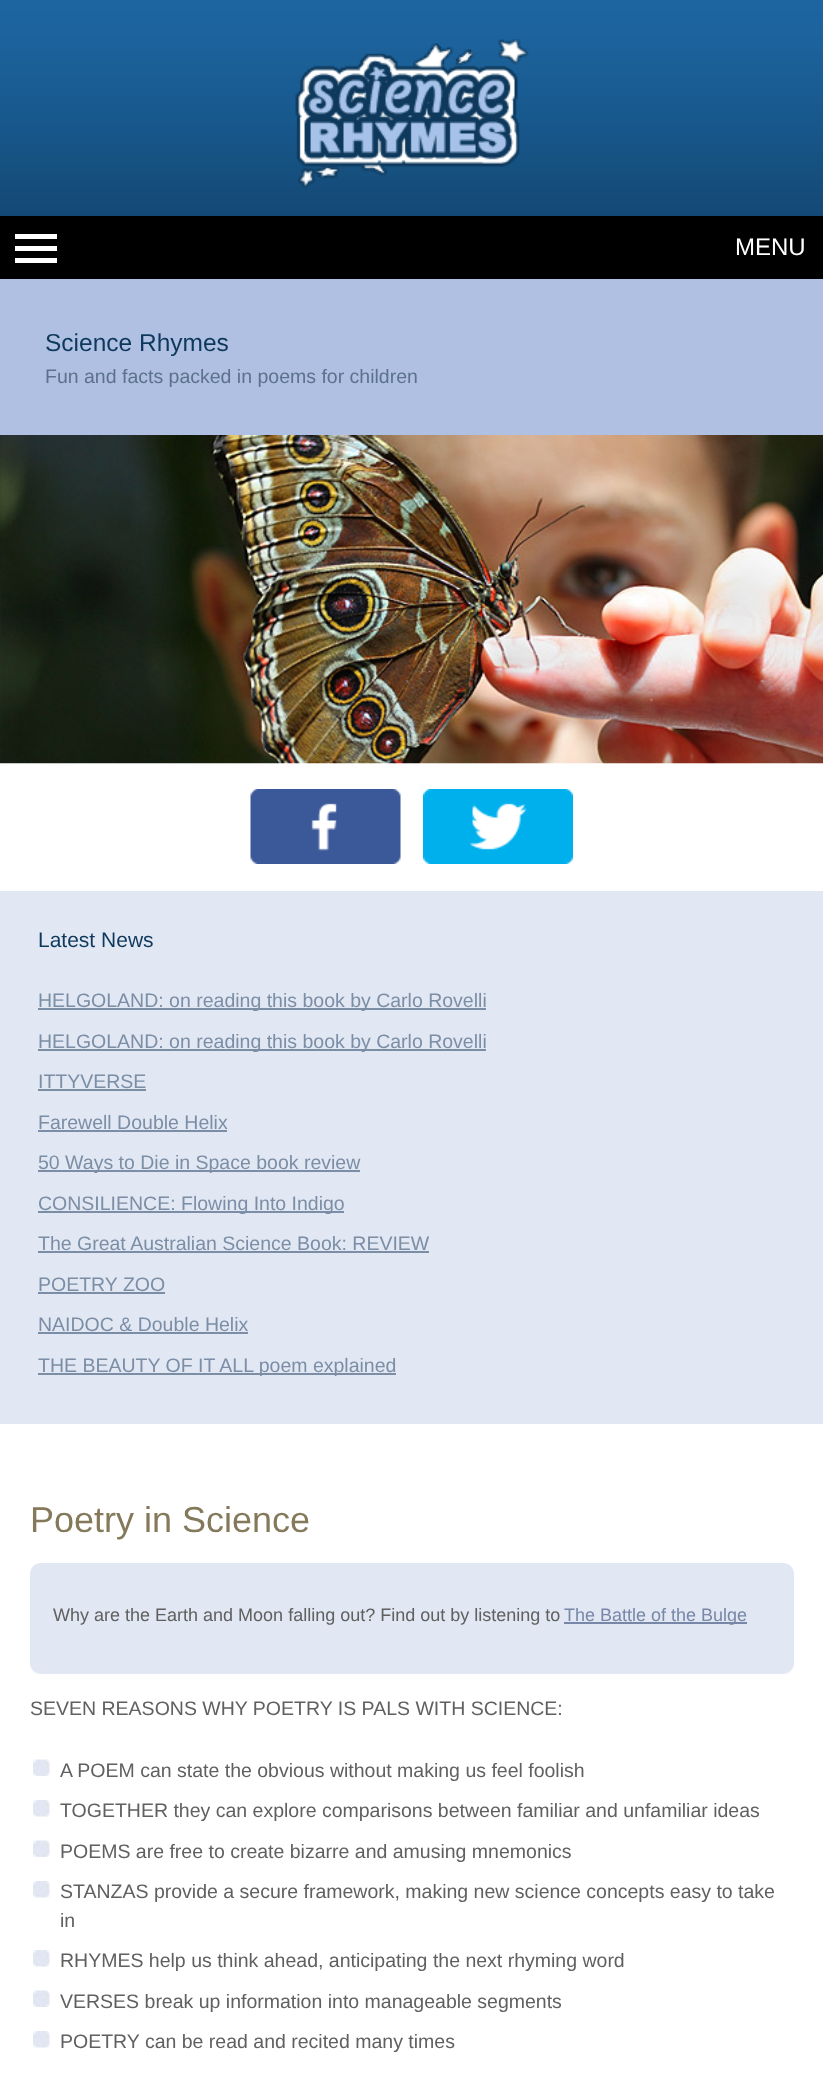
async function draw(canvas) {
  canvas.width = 823;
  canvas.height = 2095;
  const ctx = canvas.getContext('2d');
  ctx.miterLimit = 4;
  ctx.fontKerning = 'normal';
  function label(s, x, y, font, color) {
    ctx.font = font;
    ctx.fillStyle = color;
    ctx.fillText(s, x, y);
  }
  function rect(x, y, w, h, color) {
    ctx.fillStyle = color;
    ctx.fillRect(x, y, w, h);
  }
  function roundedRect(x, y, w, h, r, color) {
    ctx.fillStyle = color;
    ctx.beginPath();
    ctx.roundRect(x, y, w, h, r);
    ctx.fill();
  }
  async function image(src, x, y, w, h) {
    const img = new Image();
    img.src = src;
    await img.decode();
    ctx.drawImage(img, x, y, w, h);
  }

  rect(0, 0, 823, 2095, '#fff');
  await image('assets/img1.png', 0, 0, 823, 216);
  await image('assets/img2.png', 295, 39, 234, 149);
  rect(0, 216, 823, 63, '#000');
  rect(15, 234, 42, 5, '#fff');
  rect(15, 246, 42, 5, '#fff');
  label('MENU', 735, 255, '24px Liberation Sans', '#fff');
  rect(15, 258, 42, 5, '#fff');
  rect(0, 279, 823, 156, '#afc0e2');
  label('Science Rhymes', 45, 351, '24.5px Liberation Sans', '#0e395c');
  label('Fun and facts packed in poems for children', 45, 383, '19.5px Liberation Sans', '#5c728c');
  await image('assets/img3.png', 0, 435, 823, 329);
  await image('assets/img4.png', 250, 789, 151, 75);
  await image('assets/img5.png', 423, 789, 150, 75);
  rect(0, 891, 823, 533, '#e1e7f3');
  label('Latest News', 38, 947, '21px Liberation Sans', '#0e395c');
  rect(38, 1008, 448, 2, '#7b8ea5');
  label('HELGOLAND: on reading this book by Carlo Rovelli', 38, 1007, '19.5px Liberation Sans', '#7b8ea5');
  rect(38, 1049, 448, 2, '#7b8ea5');
  label('HELGOLAND: on reading this book by Carlo Rovelli', 38, 1048, '19.5px Liberation Sans', '#7b8ea5');
  label('ITTYVERSE', 38, 1088, '19.5px Liberation Sans', '#7b8ea5');
  rect(38, 1089, 108, 2, '#7b8ea5');
  label('Farewell Double Helix', 38, 1129, '19.5px Liberation Sans', '#7b8ea5');
  rect(38, 1130, 189, 2, '#7b8ea5');
  rect(38, 1170, 322, 2, '#7b8ea5');
  label('50 Ways to Die in Space book review', 38, 1169, '19.5px Liberation Sans', '#7b8ea5');
  rect(38, 1211, 306, 2, '#7b8ea5');
  label('CONSILIENCE: Flowing Into Indigo', 38, 1210, '19.5px Liberation Sans', '#7b8ea5');
  label('The Great Australian Science Book: REVIEW', 38, 1250, '19.5px Liberation Sans', '#7b8ea5');
  rect(38, 1251, 391, 2, '#7b8ea5');
  label('POETRY ZOO', 38, 1291, '19.5px Liberation Sans', '#7b8ea5');
  rect(38, 1292, 127, 2, '#7b8ea5');
  label('NAIDOC & Double Helix', 38, 1331, '19.5px Liberation Sans', '#7b8ea5');
  rect(38, 1332, 210, 2, '#7b8ea5');
  rect(38, 1373, 358, 2, '#7b8ea5');
  label('THE BEAUTY OF IT ALL poem explained', 38, 1372, '19.5px Liberation Sans', '#7b8ea5');
  label('Poetry in Science', 30, 1532, '36px Liberation Sans', '#84795a');
  roundedRect(30, 1563, 764, 111, 11, '#e1e7f3');
  label('Why are the Earth and Moon falling out? Find out by listening to', 53, 1621, '18px Liberation Sans', '#606060');
  rect(564, 1622, 183, 2, '#7887a7');
  label('The Battle of the Bulge', 564, 1621, '18px Liberation Sans', '#7887a7');
  label('SEVEN REASONS WHY POETRY IS PALS WITH SCIENCE:', 30, 1715, '19.5px Liberation Sans', '#606060');
  await image('assets/img6.png', 33, 1759, 17, 17);
  label('A POEM can state the obvious without making us feel foolish', 60, 1777, '19.5px Liberation Sans', '#606060');
  await image('assets/img7.png', 33, 1800, 17, 17);
  label('TOGETHER they can explore comparisons between familiar and unfamiliar ideas', 60, 1817, '19.5px Liberation Sans', '#606060');
  await image('assets/img6.png', 33, 1840, 17, 17);
  label('POEMS are free to create bizarre and amusing mnemonics', 60, 1858, '19.5px Liberation Sans', '#606060');
  await image('assets/img7.png', 33, 1881, 17, 17);
  label('STANZAS provide a secure framework, making new science concepts easy to take', 60, 1898, '19.5px Liberation Sans', '#606060');
  label('in', 60, 1927, '19.5px Liberation Sans', '#606060');
  await image('assets/img7.png', 33, 1950, 17, 17);
  label('RHYMES help us think ahead, anticipating the next rhyming word', 60, 1967, '19.5px Liberation Sans', '#606060');
  await image('assets/img6.png', 33, 1990, 17, 17);
  label('VERSES break up information into manageable segments', 60, 2008, '19.5px Liberation Sans', '#606060');
  await image('assets/img7.png', 33, 2031, 17, 17);
  label('POETRY can be read and recited many times', 60, 2048, '19.5px Liberation Sans', '#606060');
}

draw(document.querySelector('canvas'));
